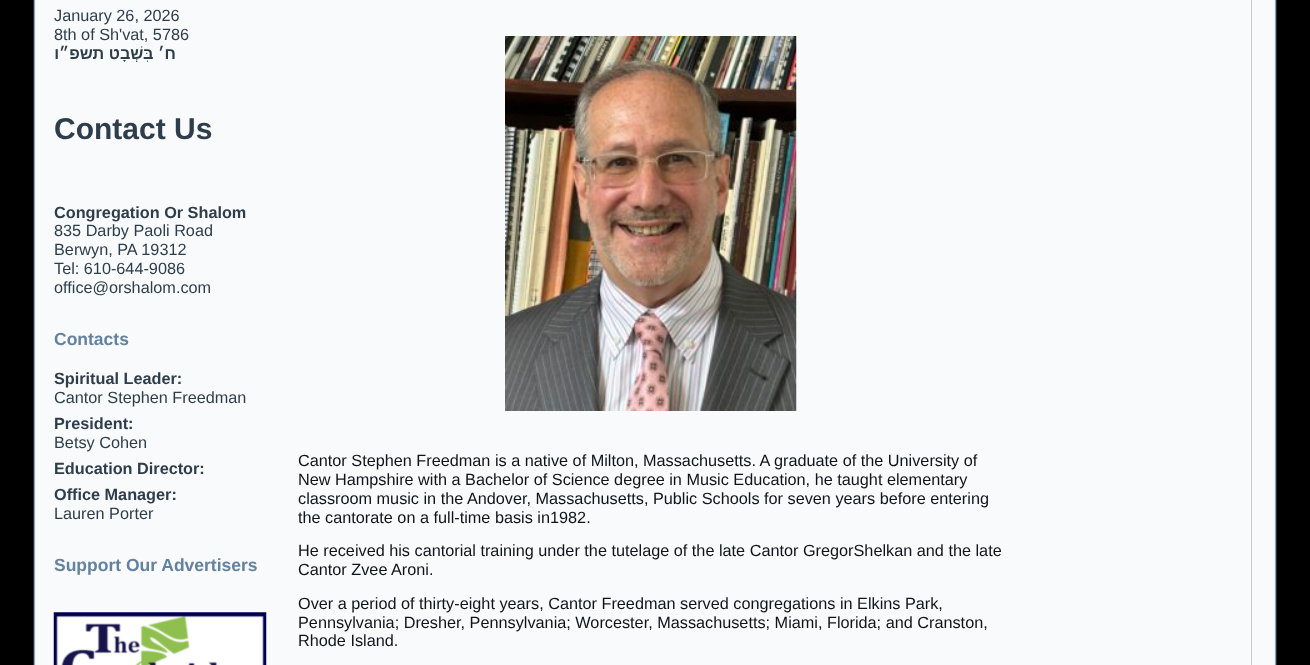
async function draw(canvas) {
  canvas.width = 1310;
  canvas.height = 665;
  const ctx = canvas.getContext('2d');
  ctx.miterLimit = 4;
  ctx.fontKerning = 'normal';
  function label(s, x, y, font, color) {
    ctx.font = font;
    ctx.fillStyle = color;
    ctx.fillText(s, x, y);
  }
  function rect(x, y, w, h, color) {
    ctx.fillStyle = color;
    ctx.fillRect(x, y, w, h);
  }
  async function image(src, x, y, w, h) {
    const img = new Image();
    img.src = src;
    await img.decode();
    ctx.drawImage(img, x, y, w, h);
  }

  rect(0, 0, 1310, 665, '#000');
  await image('assets/img1.png', 33, 0, 1219, 665);
  await image('assets/img2.png', 1251, 0, 26, 665);
  label('January 26, 2026', 54, 21, '16.25px Liberation Sans', '#2e3d4c');
  label('8th of Sh\'vat, 5786', 54, 40, '16.25px Liberation Sans', '#2e3d4c');
  ctx.direction = 'rtl';
  label('ח׳ בִּשְׁבָט תשפ״ו', 176, 59, 'bold 16.25px Liberation Sans', '#2e3d4c');
  ctx.direction = 'ltr';
  label('Contact Us', 54, 139, 'bold 30px Liberation Sans', '#2e3d4c');
  label('Congregation Or Shalom', 54, 218, 'bold 16.25px Liberation Sans', '#2e3d4c');
  label('835 Darby Paoli Road', 54, 236, '16.25px Liberation Sans', '#2e3d4c');
  label('Berwyn, PA 19312', 54, 255, '16.25px Liberation Sans', '#2e3d4c');
  label('Tel: 610-644-9086', 54, 274, '16.25px Liberation Sans', '#2e3d4c');
  label('office@orshalom.com', 54, 293, '16.25px Liberation Sans', '#2e3d4c');
  label('Contacts', 54, 345, 'bold 17.5px Liberation Sans', '#6382a1');
  label('Spiritual Leader:', 54, 384, 'bold 16.25px Liberation Sans', '#2e3d4c');
  label('Cantor Stephen Freedman', 54, 403, '16.25px Liberation Sans', '#2e3d4c');
  label('President:', 54, 429, 'bold 16.25px Liberation Sans', '#2e3d4c');
  label('Betsy Cohen', 54, 448, '16.25px Liberation Sans', '#2e3d4c');
  label('Education Director:', 54, 474, 'bold 16.25px Liberation Sans', '#2e3d4c');
  label('Office Manager:', 54, 500, 'bold 16.25px Liberation Sans', '#2e3d4c');
  label('Lauren Porter', 54, 519, '16.25px Liberation Sans', '#2e3d4c');
  label('Support Our Advertisers', 54, 571, 'bold 17.5px Liberation Sans', '#6382a1');
  await image('assets/img3.png', 53, 612, 214, 53);
  await image('assets/img4.png', 505, 36, 292, 375);
  label('Cantor Stephen Freedman is a native of Milton, Massachusetts. A graduate of the University of', 298, 466, '16.25px Liberation Sans', '#0f1419');
  label('New Hampshire with a Bachelor of Science degree in Music Education, he taught elementary', 298, 485, '16.25px Liberation Sans', '#0f1419');
  label('classroom music in the Andover, Massachusetts, Public Schools for seven years before entering', 298, 504, '16.25px Liberation Sans', '#0f1419');
  label('the cantorate on a full-time basis in1982.', 298, 523, '16.25px Liberation Sans', '#0f1419');
  label('He received his cantorial training under the tutelage of the late Cantor GregorShelkan and the late', 298, 556, '16.25px Liberation Sans', '#0f1419');
  label('Cantor Zvee Aroni.', 298, 575, '16.25px Liberation Sans', '#0f1419');
  label('Over a period of thirty-eight years, Cantor Freedman served congregations in Elkins Park,', 298, 609, '16.25px Liberation Sans', '#0f1419');
  label('Pennsylvania; Dresher, Pennsylvania; Worcester, Massachusetts; Miami, Florida; and Cranston,', 298, 628, '16.25px Liberation Sans', '#0f1419');
  label('Rhode Island.', 298, 646, '16.25px Liberation Sans', '#0f1419');
}

draw(document.querySelector('canvas'));
